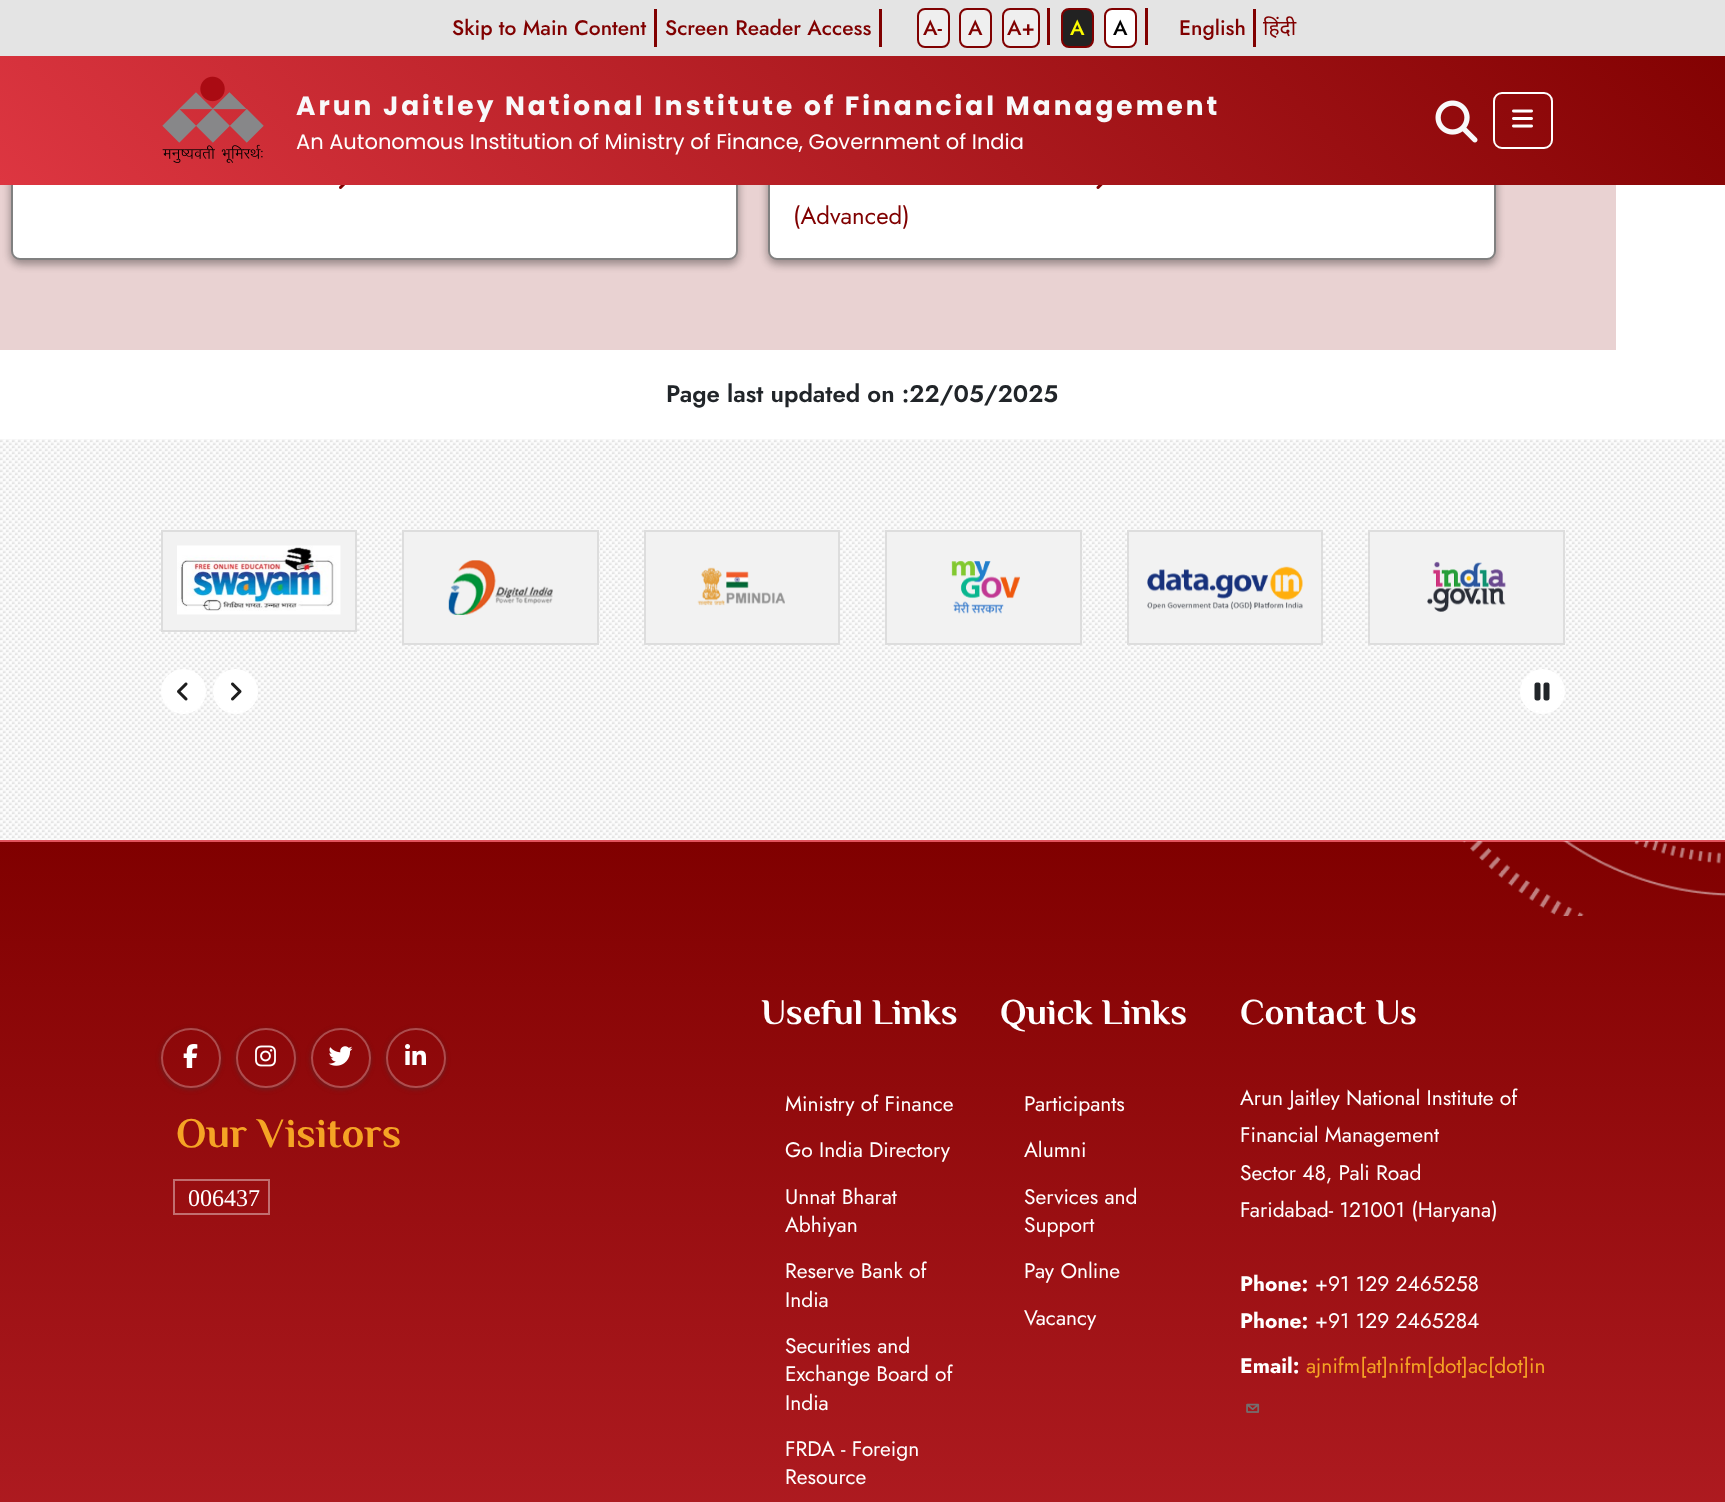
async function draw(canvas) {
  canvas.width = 1725;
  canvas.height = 1502;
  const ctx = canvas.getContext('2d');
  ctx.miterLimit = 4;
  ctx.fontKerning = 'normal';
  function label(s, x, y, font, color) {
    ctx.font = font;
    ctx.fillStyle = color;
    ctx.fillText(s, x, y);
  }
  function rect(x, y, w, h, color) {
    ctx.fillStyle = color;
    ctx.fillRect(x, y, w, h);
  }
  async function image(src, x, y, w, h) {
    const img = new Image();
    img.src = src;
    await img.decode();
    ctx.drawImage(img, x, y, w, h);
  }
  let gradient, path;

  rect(0, 0, 1725, 1502, '#fff');
  rect(0, 185, 1616, 165, '#e9d2d2');
  ctx.fillStyle = '#0000003b';
  ctx.filter = 'blur(4.5px)';
  ctx.beginPath();
  ctx.roundRect(11, 141, 727, 123, 9);
  ctx.fill();
  ctx.filter = 'none';
  ctx.fillStyle = '#00000029';
  ctx.filter = 'blur(4.5px)';
  ctx.beginPath();
  ctx.roundRect(11, 141, 727, 123, 9);
  ctx.fill();
  ctx.filter = 'none';
  ctx.fillStyle = '#fff';
  ctx.beginPath();
  ctx.roundRect(12, 138, 725, 121, 8);
  ctx.fill();
  ctx.strokeStyle = '#808080';
  ctx.lineWidth = 2;
  ctx.stroke();
  ctx.fillStyle = '#0000003b';
  ctx.filter = 'blur(4.5px)';
  ctx.beginPath();
  ctx.roundRect(768, 141, 728, 123, 9);
  ctx.fill();
  ctx.filter = 'none';
  ctx.fillStyle = '#00000029';
  ctx.filter = 'blur(4.5px)';
  ctx.beginPath();
  ctx.roundRect(768, 141, 728, 123, 9);
  ctx.fill();
  ctx.filter = 'none';
  ctx.fillStyle = '#fff';
  ctx.beginPath();
  ctx.roundRect(769, 138, 726, 121, 8);
  ctx.fill();
  ctx.stroke();
  gradient = ctx.createLinearGradient(385, 570, 1340, -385);
  gradient.addColorStop(0, '#dd3641');
  gradient.addColorStop(1, '#800000');
  ctx.fillStyle = gradient;
  ctx.fillRect(0, 56, 1725, 129);
  rect(0, 0, 1725, 56, '#e4e4e4');
  label('Skip to Main Content', 452, 35, '500 21px Jost', '#800000');
  rect(654, 9, 3, 38, '#800000');
  label('Screen Reader Access', 665, 35, '500 21px Jost', '#800000');
  rect(879, 9, 3, 38, '#800000');
  ctx.fillStyle = '#efefef';
  ctx.beginPath();
  ctx.roundRect(918, 9, 31, 38, 7);
  ctx.fill();
  ctx.strokeStyle = '#800000';
  ctx.stroke();
  label('A-', 923, 35, '500 21px Jost', '#800000');
  ctx.fillStyle = '#efefef';
  ctx.beginPath();
  ctx.roundRect(960, 9, 31, 38, 7);
  ctx.fill();
  ctx.stroke();
  label('A', 968, 35, '500 21px Jost', '#800000');
  ctx.fillStyle = '#efefef';
  ctx.beginPath();
  ctx.roundRect(1003, 9, 36, 38, 7);
  ctx.fill();
  ctx.stroke();
  label('A+', 1007, 35, '500 21px Jost', '#800000');
  rect(1047, 8, 3, 37, '#800000');
  ctx.fillStyle = '#222';
  ctx.beginPath();
  ctx.roundRect(1062, 9, 31, 38, 7);
  ctx.fill();
  ctx.stroke();
  label('A', 1070, 35, '500 21px Jost', '#fbfb01');
  ctx.fillStyle = '#fff';
  ctx.beginPath();
  ctx.roundRect(1105, 9, 31, 38, 7);
  ctx.fill();
  ctx.stroke();
  label('A', 1113, 35, '500 21px Jost', '#000');
  rect(1145, 8, 3, 37, '#800000');
  label('English', 1179, 35, '500 21px Jost', '#800000');
  rect(1253, 9, 3, 38, '#800000');
  label('हिंदी', 1263, 35, '21px Noto Sans', '#800000');
  await image('assets/img1.png', 162, 76, 102, 87);
  ctx.letterSpacing = '3px';
  label('Arun Jaitley National Institute of Financial Management', 296, 115, 'bold 26.4px Poppins', '#f8f9fa');
  ctx.letterSpacing = '0px';
  label('An Autonomous Institution of Ministry of Finance, Government of India', 296, 149, '21px Poppins', '#fff');
  await image('assets/img2.png', 1435, 100, 43, 43);
  ctx.beginPath();
  ctx.roundRect(1494, 93, 58, 55, 8);
  ctx.strokeStyle = '#fff';
  ctx.stroke();
  await image('assets/img3.png', 1512, 109, 21, 19);
  await image('assets/img4.png', 339, 185, 6, 4);
  await image('assets/img5.png', 1096, 185, 7, 4);
  label('(Advanced)', 793, 224, '24px Jost', '#800000');
  label('Page last updated on :22/05/2025', 666, 402, '600 24px Jost', '#212529');
  await image('assets/img6.png', 0, 439, 1725, 401);
  ctx.fillStyle = '#f2f2f2';
  ctx.beginPath();
  ctx.rect(162, 531, 194, 100);
  ctx.fill();
  ctx.strokeStyle = '#ddd';
  ctx.stroke();
  await image('assets/img7.png', 177, 545, 164, 70);
  ctx.beginPath();
  ctx.rect(403, 531, 195, 113);
  ctx.fill();
  ctx.stroke();
  await image('assets/img8.png', 448, 560, 105, 55);
  ctx.beginPath();
  ctx.rect(645, 531, 194, 113);
  ctx.fill();
  ctx.stroke();
  await image('assets/img9.png', 697, 567, 88, 39);
  ctx.beginPath();
  ctx.rect(886, 531, 195, 113);
  ctx.fill();
  ctx.stroke();
  await image('assets/img10.png', 951, 560, 69, 54);
  ctx.beginPath();
  ctx.rect(1128, 531, 194, 113);
  ctx.fill();
  ctx.stroke();
  await image('assets/img11.png', 1147, 566, 156, 44);
  ctx.beginPath();
  ctx.rect(1369, 531, 195, 113);
  ctx.fill();
  ctx.stroke();
  await image('assets/img12.png', 1427, 561, 79, 51);
  ctx.fillStyle = '#fff';
  ctx.beginPath();
  ctx.arc(183.5, 691.5, 22.5, 0, 2 * Math.PI);
  ctx.fill();
  await image('assets/img13.png', 177, 682, 11, 19);
  ctx.beginPath();
  ctx.arc(235.5, 691.5, 22.5, 0, 2 * Math.PI);
  ctx.fill();
  await image('assets/img14.png', 231, 682, 11, 19);
  ctx.beginPath();
  ctx.arc(1542.5, 691.5, 22.5, 0, 2 * Math.PI);
  ctx.fill();
  await image('assets/img15.png', 1534, 682, 16, 19);
  gradient = ctx.createLinearGradient(863, 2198, 863, 842);
  gradient.addColorStop(0, '#dd3641');
  gradient.addColorStop(1, '#800000');
  ctx.fillStyle = gradient;
  ctx.fillRect(0, 842, 1725, 660);
  rect(0, 840, 1725, 2, '#e1535d');
  await image('assets/img16.png', 1462, 841, 263, 75);
  ctx.save();
  path = new Path2D('M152 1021H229V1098H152ZM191 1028C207.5 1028 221 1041.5 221 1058C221 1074.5 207.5 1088 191 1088C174.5 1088 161 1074.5 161 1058C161 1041.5 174.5 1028 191 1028Z');
  ctx.clip(path, 'evenodd');
  ctx.fillStyle = '#3c404326';
  ctx.filter = 'blur(2px)';
  ctx.beginPath();
  ctx.roundRect(159, 1028, 63, 63, 31.5);
  ctx.fill();
  ctx.filter = 'none';
  ctx.restore();
  ctx.save();
  path = new Path2D('M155 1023H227V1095H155ZM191 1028C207.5 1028 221 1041.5 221 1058C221 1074.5 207.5 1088 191 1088C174.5 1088 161 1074.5 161 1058C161 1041.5 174.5 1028 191 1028Z');
  ctx.clip(path, 'evenodd');
  ctx.fillStyle = '#3c40434d';
  ctx.filter = 'blur(1.5px)';
  ctx.beginPath();
  ctx.roundRect(161, 1029, 60, 60, 30);
  ctx.fill();
  ctx.filter = 'none';
  ctx.restore();
  ctx.beginPath();
  ctx.arc(191, 1058, 29, 0, 2 * Math.PI);
  ctx.strokeStyle = '#ffffff47';
  ctx.stroke();
  await image('assets/img17.png', 183, 1044, 15, 24);
  ctx.save();
  path = new Path2D('M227 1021H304V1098H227ZM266 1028C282.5 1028 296 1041.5 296 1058C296 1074.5 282.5 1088 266 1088C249.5 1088 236 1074.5 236 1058C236 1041.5 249.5 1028 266 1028Z');
  ctx.clip(path, 'evenodd');
  ctx.fillStyle = '#3c404326';
  ctx.filter = 'blur(2px)';
  ctx.beginPath();
  ctx.roundRect(234, 1028, 63, 63, 31.5);
  ctx.fill();
  ctx.filter = 'none';
  ctx.restore();
  ctx.save();
  path = new Path2D('M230 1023H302V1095H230ZM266 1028C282.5 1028 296 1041.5 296 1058C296 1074.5 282.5 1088 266 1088C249.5 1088 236 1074.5 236 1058C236 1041.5 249.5 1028 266 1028Z');
  ctx.clip(path, 'evenodd');
  ctx.fillStyle = '#3c40434d';
  ctx.filter = 'blur(1.5px)';
  ctx.beginPath();
  ctx.roundRect(236, 1029, 60, 60, 30);
  ctx.fill();
  ctx.filter = 'none';
  ctx.restore();
  ctx.beginPath();
  ctx.arc(266, 1058, 29, 0, 2 * Math.PI);
  ctx.stroke();
  await image('assets/img18.png', 255, 1045, 21, 22);
  ctx.save();
  path = new Path2D('M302 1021H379V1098H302ZM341 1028C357.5 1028 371 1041.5 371 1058C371 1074.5 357.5 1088 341 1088C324.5 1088 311 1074.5 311 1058C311 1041.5 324.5 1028 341 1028Z');
  ctx.clip(path, 'evenodd');
  ctx.fillStyle = '#3c404326';
  ctx.filter = 'blur(2px)';
  ctx.beginPath();
  ctx.roundRect(309, 1028, 63, 63, 31.5);
  ctx.fill();
  ctx.filter = 'none';
  ctx.restore();
  ctx.save();
  path = new Path2D('M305 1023H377V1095H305ZM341 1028C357.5 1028 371 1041.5 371 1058C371 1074.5 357.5 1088 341 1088C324.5 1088 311 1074.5 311 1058C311 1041.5 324.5 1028 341 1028Z');
  ctx.clip(path, 'evenodd');
  ctx.fillStyle = '#3c40434d';
  ctx.filter = 'blur(1.5px)';
  ctx.beginPath();
  ctx.roundRect(311, 1029, 60, 60, 30);
  ctx.fill();
  ctx.filter = 'none';
  ctx.restore();
  ctx.beginPath();
  ctx.arc(341, 1058, 29, 0, 2 * Math.PI);
  ctx.stroke();
  await image('assets/img19.png', 328, 1046, 25, 20);
  ctx.save();
  path = new Path2D('M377 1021H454V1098H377ZM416 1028C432.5 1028 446 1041.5 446 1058C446 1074.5 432.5 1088 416 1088C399.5 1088 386 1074.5 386 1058C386 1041.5 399.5 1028 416 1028Z');
  ctx.clip(path, 'evenodd');
  ctx.fillStyle = '#3c404326';
  ctx.filter = 'blur(2px)';
  ctx.beginPath();
  ctx.roundRect(384, 1028, 63, 63, 31.5);
  ctx.fill();
  ctx.filter = 'none';
  ctx.restore();
  ctx.save();
  path = new Path2D('M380 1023H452V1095H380ZM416 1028C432.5 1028 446 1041.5 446 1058C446 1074.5 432.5 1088 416 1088C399.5 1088 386 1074.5 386 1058C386 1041.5 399.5 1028 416 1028Z');
  ctx.clip(path, 'evenodd');
  ctx.fillStyle = '#3c40434d';
  ctx.filter = 'blur(1.5px)';
  ctx.beginPath();
  ctx.roundRect(386, 1029, 60, 60, 30);
  ctx.fill();
  ctx.filter = 'none';
  ctx.restore();
  ctx.beginPath();
  ctx.arc(416, 1058, 29, 0, 2 * Math.PI);
  ctx.stroke();
  await image('assets/img20.png', 405, 1044, 21, 21);
  label('Our Visitors', 176, 1147, 'bold 41.5px Philosopher', '#f5a425');
  ctx.strokeStyle = '#ffffff66';
  ctx.strokeRect(174, 1180, 95, 34);
  label('006437', 188, 1206, '24px Liberation Serif', '#fff');
  label('Useful Links', 761, 1024, 'bold 36px Philosopher', '#fff');
  label('Ministry of Finance', 785, 1111, '21px Jost', '#fff');
  label('Go India Directory', 785, 1157, '21px Jost', '#fff');
  label('Unnat Bharat', 785, 1204, '21px Jost', '#fff');
  label('Abhiyan', 785, 1232, '21px Jost', '#fff');
  label('Reserve Bank of', 785, 1278, '21px Jost', '#fff');
  label('India', 785, 1307, '21px Jost', '#fff');
  label('Securities and', 785, 1353, '21px Jost', '#fff');
  label('Exchange Board of', 785, 1381, '21px Jost', '#fff');
  label('India', 785, 1410, '21px Jost', '#fff');
  label('FRDA - Foreign', 785, 1456, '21px Jost', '#fff');
  label('Resource', 785, 1484, '21px Jost', '#fff');
  label('Quick Links', 1000, 1024, 'bold 36px Philosopher', '#fff');
  label('Participants', 1024, 1111, '21px Jost', '#fff');
  label('Alumni', 1024, 1157, '21px Jost', '#fff');
  label('Services and', 1024, 1204, '21px Jost', '#fff');
  label('Support', 1024, 1232, '21px Jost', '#fff');
  label('Pay Online', 1024, 1278, '21px Jost', '#fff');
  label('Vacancy', 1024, 1325, '21px Jost', '#fff');
  label('Contact Us', 1240, 1024, 'bold 36px Philosopher', '#fff');
  label('Arun Jaitley National Institute of', 1240, 1105, '21px Jost', '#fff');
  label('Financial Management', 1240, 1142, '21px Jost', '#fff');
  label('Sector 48, Pali Road', 1240, 1180, '21px Jost', '#fff');
  label('Faridabad- 121001 (Haryana)', 1240, 1217, '21px Jost', '#fff');
  label('Phone:', 1240, 1291, 'bold 21px Jost', '#fff');
  label('+91 129 2465258', 1315, 1291, '21px Jost', '#fff');
  label('Phone:', 1240, 1328, 'bold 21px Jost', '#fff');
  label('+91 129 2465284', 1315, 1328, '21px Jost', '#fff');
  label('Email:', 1240, 1373, 'bold 21px Jost', '#fff');
  label('ajnifm[at]nifm[dot]ac[dot]in', 1306, 1373, '21px Jost', '#f5a425');
  await image('assets/img21.png', 1246, 1403, 14, 10);
}

draw(document.querySelector('canvas'));
